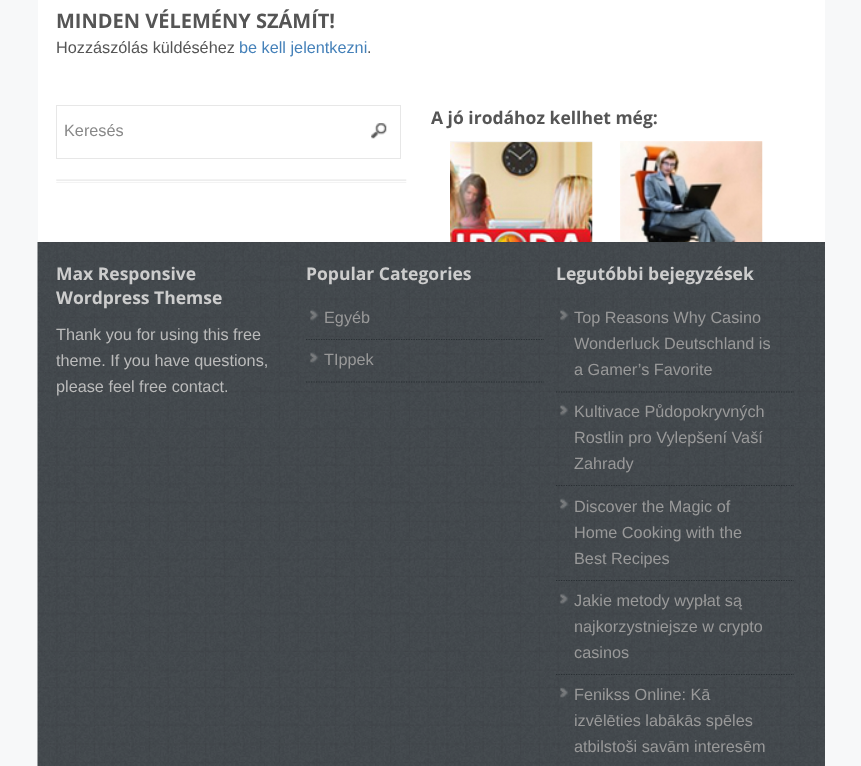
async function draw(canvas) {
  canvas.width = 861;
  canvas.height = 766;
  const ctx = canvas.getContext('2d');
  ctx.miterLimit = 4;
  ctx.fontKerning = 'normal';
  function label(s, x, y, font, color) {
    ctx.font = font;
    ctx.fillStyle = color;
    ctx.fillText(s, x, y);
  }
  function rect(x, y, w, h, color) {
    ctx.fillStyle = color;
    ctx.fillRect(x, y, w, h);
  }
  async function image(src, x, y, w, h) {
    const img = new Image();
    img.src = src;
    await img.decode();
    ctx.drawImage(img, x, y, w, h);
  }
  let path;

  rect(0, 0, 861, 766, '#f7f8f9');
  rect(38, 0, 787, 242, '#fff');
  label('MINDEN VÉLEMÉNY SZÁMÍT!', 56, 28, 'bold 20px Open Sans', '#555');
  label('Hozzászólás küldéséhez', 56, 53, '16.25px Liberation Sans', '#555');
  label('be kell jelentkezni', 239, 53, '16.25px Liberation Sans', '#4581b9');
  label('.', 367, 53, '16.25px Liberation Sans', '#555');
  label('A jó irodához kellhet még:', 431, 124, 'bold 17.5px Open Sans', '#555');
  await image('assets/img1.png', 450, 141, 143, 101);
  await image('assets/img2.png', 620, 141, 143, 101);
  await image('assets/img3.png', 56, 179, 351, 4);
  await image('assets/img4.png', 371, 123, 16, 16);
  ctx.strokeStyle = '#e7e7e7';
  ctx.strokeRect(56.5, 105.5, 344, 53);
  label('Keresés', 64, 136, '16.25px Liberation Sans', '#888');
  await image('assets/img5.png', 37, 242, 788, 524);
  label('Max Responsive', 56, 280, 'bold 17.5px Open Sans', '#cdcdcd');
  label('Wordpress Themse', 56, 304, 'bold 17.5px Open Sans', '#cdcdcd');
  label('Thank you for using this free', 56, 340, '16.25px Liberation Sans', '#bbb');
  label('theme. If you have questions,', 56, 366, '16.25px Liberation Sans', '#bbb');
  label('please feel free contact.', 56, 392, '16.25px Liberation Sans', '#bbb');
  label('Popular Categories', 306, 280, 'bold 17.5px Open Sans', '#cdcdcd');
  await image('assets/img6.png', 310, 309, 9, 12);
  path = new Path2D('M306 339.5H544');
  ctx.strokeStyle = '#292f33';
  ctx.lineWidth = 1.2;
  ctx.setLineDash([1.25, 1.25]);
  ctx.stroke(path);
  label('Egyéb', 324, 323, '16.25px Liberation Sans', '#999');
  await image('assets/img7.png', 310, 352, 9, 11);
  path = new Path2D('M306 382H544');
  ctx.stroke(path);
  label('TIppek', 324, 365, '16.25px Liberation Sans', '#999');
  label('Legutóbbi bejegyzések', 556, 280, 'bold 17.5px Open Sans', '#cdcdcd');
  await image('assets/img8.png', 560, 309, 9, 12);
  path = new Path2D('M556 392H794');
  ctx.stroke(path);
  label('Top Reasons Why Casino', 574, 323, '16.25px Liberation Sans', '#999');
  label('Wonderluck Deutschland is', 574, 349, '16.25px Liberation Sans', '#999');
  label('a Gamer’s Favorite', 574, 375, '16.25px Liberation Sans', '#999');
  await image('assets/img9.png', 560, 404, 9, 12);
  path = new Path2D('M556 485.5H794');
  ctx.stroke(path);
  label('Kultivace Půdopokryvných', 574, 417, '16.25px Liberation Sans', '#999');
  label('Rostlin pro Vylepšení Vaší', 574, 443, '16.25px Liberation Sans', '#999');
  label('Zahrady', 574, 469, '16.25px Liberation Sans', '#999');
  await image('assets/img10.png', 560, 498, 9, 12);
  path = new Path2D('M556 580.5H794');
  ctx.stroke(path);
  label('Discover the Magic of', 574, 512, '16.25px Liberation Sans', '#999');
  label('Home Cooking with the', 574, 538, '16.25px Liberation Sans', '#999');
  label('Best Recipes', 574, 564, '16.25px Liberation Sans', '#999');
  await image('assets/img11.png', 560, 593, 9, 12);
  path = new Path2D('M556 674.5H794');
  ctx.stroke(path);
  label('Jakie metody wypłat są', 574, 606, '16.25px Liberation Sans', '#999');
  label('najkorzystniejsze w crypto', 574, 632, '16.25px Liberation Sans', '#999');
  label('casinos', 574, 658, '16.25px Liberation Sans', '#999');
  await image('assets/img12.png', 560, 687, 9, 11);
  label('Fenikss Online: Kā', 574, 700, '16.25px Liberation Sans', '#999');
  label('izvēlēties labākās spēles', 574, 726, '16.25px Liberation Sans', '#999');
  label('atbilstoši savām interesēm', 574, 752, '16.25px Liberation Sans', '#999');
}

draw(document.querySelector('canvas'));
